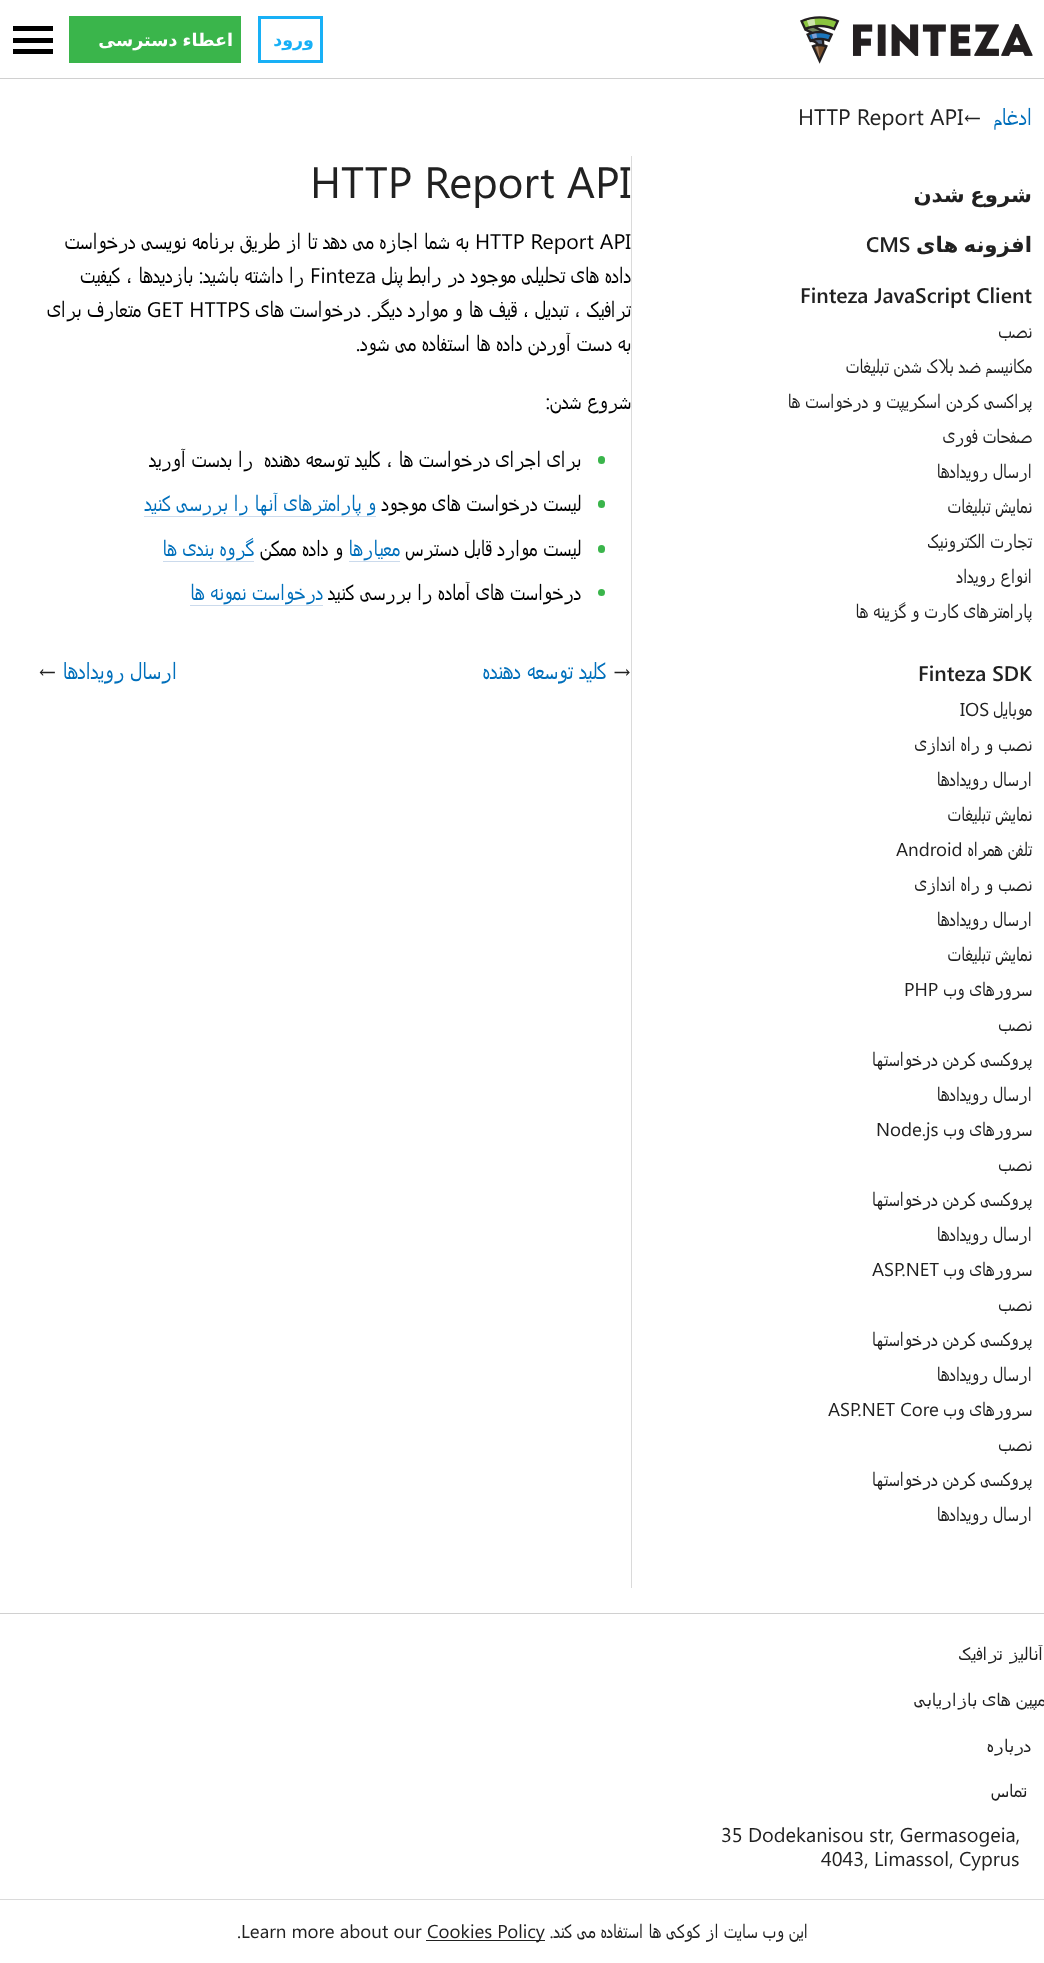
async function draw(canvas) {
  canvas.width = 1044;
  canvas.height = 1963;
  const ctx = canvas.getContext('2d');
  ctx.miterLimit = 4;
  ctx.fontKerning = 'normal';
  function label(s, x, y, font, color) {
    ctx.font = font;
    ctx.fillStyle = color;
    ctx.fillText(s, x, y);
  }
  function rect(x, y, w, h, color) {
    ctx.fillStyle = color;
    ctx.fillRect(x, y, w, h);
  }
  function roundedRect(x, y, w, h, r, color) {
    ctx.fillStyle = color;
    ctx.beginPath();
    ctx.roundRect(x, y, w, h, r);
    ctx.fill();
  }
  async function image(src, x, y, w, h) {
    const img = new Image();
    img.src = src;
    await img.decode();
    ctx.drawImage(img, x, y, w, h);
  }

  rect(0, 0, 1044, 1963, '#fff');
  rect(0, 78, 1044, 1, '#d0d0d0');
  await image('assets/img1.png', 800, 16, 233, 48);
  ctx.strokeStyle = '#18b0f6';
  ctx.lineWidth = 3;
  ctx.strokeRect(259.5, 17.5, 62, 44);
  ctx.letterSpacing = '1px';
  ctx.direction = 'rtl';
  label('ورود', 314, 46, 'bold 17.5px DejaVu Sans', '#18b0f6');
  rect(69, 16, 172, 47, '#3ab54b');
  ctx.wordSpacing = '-2px';
  label('اعطاء دسترسی', 233, 46, 'bold 17.5px DejaVu Sans', '#fff');
  rect(13, 26, 40, 5, '#000');
  rect(13, 38, 40, 5, '#000');
  rect(13, 49, 40, 5, '#000');
  ctx.letterSpacing = '0px';
  ctx.wordSpacing = '0px';
  label('ادغام', 1032, 125, '22.5px Segoe UI', '#006fbb');
  ctx.direction = 'ltr';
  label('←', 963, 125, '22.5px Segoe UI', '#212121');
  label('HTTP Report API', 798, 125, '22.5px Segoe UI', '#212121');
  ctx.direction = 'rtl';
  label('ترافیک ، تبدیل ، قیف ها و موارد دیگر. درخواست های', 631, 317, '21.25px Segoe UI', '#000');
  rect(631, 156, 1, 1432, '#dadada');
  ctx.wordSpacing = '-2px';
  label('شروع شدن', 1032, 202, 'bold 21.25px DejaVu Sans', '#212121');
  label('افزونه های', 1032, 252, 'bold 21.25px DejaVu Sans', '#212121');
  ctx.wordSpacing = '0px';
  ctx.direction = 'ltr';
  label('CMS', 866, 252, '600 21.25px Segoe UI', '#212121');
  label('Finteza JavaScript Client', 800, 303, '600 21.25px Segoe UI', '#212121');
  ctx.direction = 'rtl';
  label('نصب', 1032, 338, '18.75px Segoe UI', '#212121');
  label('مکانیسم ضد بلاک شدن تبلیغات', 1032, 373, '18.75px Segoe UI', '#212121');
  label('پراکسی کردن اسکریپت و درخواست ها', 1032, 408, '18.75px Segoe UI', '#212121');
  label('صفحات فوری', 1032, 443, '18.75px Segoe UI', '#212121');
  label('ارسال رویدادها', 1032, 478, '18.75px Segoe UI', '#212121');
  label('نمایش تبلیغات', 1032, 513, '18.75px Segoe UI', '#212121');
  label('تجارت الکترونیک', 1032, 548, '18.75px Segoe UI', '#212121');
  label('انواع رویداد', 1032, 583, '18.75px Segoe UI', '#212121');
  label('پارامترهای کارت و گزینه ها', 1032, 618, '18.75px Segoe UI', '#212121');
  ctx.direction = 'ltr';
  label('Finteza SDK', 918, 681, '600 21.25px Segoe UI', '#212121');
  ctx.direction = 'rtl';
  label('موبایل', 1032, 716, '18.75px Segoe UI', '#212121');
  ctx.direction = 'ltr';
  label('IOS', 960, 716, '18.75px Segoe UI', '#212121');
  ctx.direction = 'rtl';
  label('نصب و راه اندازی', 1032, 751, '18.75px Segoe UI', '#212121');
  label('ارسال رویدادها', 1032, 786, '18.75px Segoe UI', '#212121');
  label('نمایش تبلیغات', 1032, 821, '18.75px Segoe UI', '#212121');
  label('تلفن همراه', 1032, 856, '18.75px Segoe UI', '#212121');
  ctx.direction = 'ltr';
  label('Android', 896, 856, '18.75px Segoe UI', '#212121');
  ctx.direction = 'rtl';
  label('نصب و راه اندازی', 1032, 891, '18.75px Segoe UI', '#212121');
  label('ارسال رویدادها', 1032, 926, '18.75px Segoe UI', '#212121');
  label('نمایش تبلیغات', 1032, 961, '18.75px Segoe UI', '#212121');
  label('سرورهای وب', 1032, 996, '18.75px Segoe UI', '#212121');
  ctx.direction = 'ltr';
  label('PHP', 904, 996, '18.75px Segoe UI', '#212121');
  ctx.direction = 'rtl';
  label('نصب', 1032, 1031, '18.75px Segoe UI', '#212121');
  label('پروکسی کردن درخواستها', 1032, 1066, '18.75px Segoe UI', '#212121');
  label('ارسال رویدادها', 1032, 1101, '18.75px Segoe UI', '#212121');
  label('سرورهای وب', 1032, 1136, '18.75px Segoe UI', '#212121');
  ctx.direction = 'ltr';
  label('Node.js', 876, 1136, '18.75px Segoe UI', '#212121');
  ctx.direction = 'rtl';
  label('نصب', 1032, 1171, '18.75px Segoe UI', '#212121');
  label('پروکسی کردن درخواستها', 1032, 1206, '18.75px Segoe UI', '#212121');
  label('ارسال رویدادها', 1032, 1241, '18.75px Segoe UI', '#212121');
  label('سرورهای وب', 1032, 1276, '18.75px Segoe UI', '#212121');
  ctx.direction = 'ltr';
  label('ASP.NET', 872, 1276, '18.75px Segoe UI', '#212121');
  ctx.direction = 'rtl';
  label('نصب', 1032, 1311, '18.75px Segoe UI', '#212121');
  label('پروکسی کردن درخواستها', 1032, 1346, '18.75px Segoe UI', '#212121');
  label('ارسال رویدادها', 1032, 1381, '18.75px Segoe UI', '#212121');
  label('سرورهای وب', 1032, 1416, '18.75px Segoe UI', '#212121');
  ctx.direction = 'ltr';
  label('ASP.NET Core', 828, 1416, '18.75px Segoe UI', '#212121');
  ctx.direction = 'rtl';
  label('نصب', 1032, 1451, '18.75px Segoe UI', '#212121');
  label('پروکسی کردن درخواستها', 1032, 1486, '18.75px Segoe UI', '#212121');
  label('ارسال رویدادها', 1032, 1521, '18.75px Segoe UI', '#212121');
  ctx.direction = 'ltr';
  label('HTTP Report API', 310, 198, '43.75px Segoe UI', '#212121');
  label('HTTP Report API', 475, 249, '21.25px Segoe UI', '#000');
  ctx.direction = 'rtl';
  label('به شما اجازه می دهد تا از طریق برنامه نویسی درخواست', 469, 249, '21.25px Segoe UI', '#000');
  label('داده های تحلیلی موجود در رابط پنل', 631, 283, '21.25px Segoe UI', '#000');
  ctx.direction = 'ltr';
  label('Finteza', 310, 283, '21.25px Segoe UI', '#000');
  ctx.direction = 'rtl';
  label('را داشته باشید: بازدیدها ، کیفیت', 304, 283, '21.25px Segoe UI', '#000');
  ctx.direction = 'ltr';
  label('GET HTTPS', 147, 317, '21.25px Segoe UI', '#000');
  ctx.direction = 'rtl';
  label('متعارف برای', 141, 317, '21.25px Segoe UI', '#000');
  label('به دست آوردن داده ها استفاده می شود.', 631, 351, '21.25px Segoe UI', '#000');
  label('شروع شدن:', 631, 409, '21.25px Segoe UI', '#000');
  roundedRect(598, 456, 7, 8, 3.5, '#3ab54b');
  label('برای اجرای درخواست ها ، کلید توسعه دهنده', 581, 467, '21.25px Segoe UI', '#000');
  label('را بدست آورید', 253, 467, '21.25px Segoe UI', '#000');
  roundedRect(598, 500, 7, 8, 3.5, '#3ab54b');
  label('لیست درخواست های موجود', 581, 511, '21.25px Segoe UI', '#000');
  label('و پارامترهای آنها را بررسی کنید', 376, 511, '21.25px Segoe UI', '#006fbb');
  rect(144, 516, 232, 1, '#cbdaec');
  roundedRect(598, 545, 7, 8, 3.5, '#3ab54b');
  label('لیست موارد قابل دسترس', 581, 556, '21.25px Segoe UI', '#000');
  label('معیارها', 400, 556, '21.25px Segoe UI', '#006fbb');
  rect(349, 561, 51, 1, '#cbdaec');
  label('و داده ممکن', 343, 556, '21.25px Segoe UI', '#000');
  label('گروه بندی ها', 254, 556, '21.25px Segoe UI', '#006fbb');
  rect(163, 561, 91, 1, '#cbdaec');
  ctx.fillStyle = '#3ab54b';
  ctx.beginPath();
  ctx.arc(601.5, 592.5, 3.5, 0, 2 * Math.PI);
  ctx.fill();
  label('درخواست های آماده را بررسی کنید', 581, 600, '21.25px Segoe UI', '#000');
  label('درخواست نمونه ها', 323, 600, '21.25px Segoe UI', '#006fbb');
  rect(190, 605, 133, 1, '#cbdaec');
  ctx.direction = 'ltr';
  label('→', 612, 679, '22.5px Segoe UI', '#212121');
  ctx.direction = 'rtl';
  label('کلید توسعه دهنده', 606, 679, '22.5px Segoe UI', '#006fbb');
  label('ارسال رویدادها', 177, 679, '22.5px Segoe UI', '#006fbb');
  ctx.direction = 'ltr';
  label('←', 38, 679, '22.5px Segoe UI', '#212121');
  rect(0, 1613, 1044, 1, '#d0d0d0');
  ctx.letterSpacing = '1.9px';
  ctx.wordSpacing = '-1px';
  ctx.direction = 'rtl';
  label('آنالیز ترافیک', 1043, 1660, 'bold 17.5px Segoe UI', '#212121');
  label('کمپین های بازاریابی', 1054, 1706, 'bold 17.5px Segoe UI', '#212121');
  ctx.wordSpacing = '0px';
  label('درباره', 1031, 1752, 'bold 17.5px Segoe UI', '#212121');
  label('تماس', 1027, 1797, 'bold 17.5px Segoe UI', '#212121');
  ctx.letterSpacing = '0px';
  ctx.direction = 'ltr';
  label('35 Dodekanisou str, Germasogeia,', 721, 1842, '20px Segoe UI', '#212121');
  label('4043, Limassol, Cyprus', 821, 1866, '20px Segoe UI', '#212121');
  rect(0, 1899, 1044, 1, '#dadada');
  ctx.direction = 'rtl';
  label('این وب سایت از کوکی ها استفاده می کند.', 808, 1938, '18.75px Segoe UI', '#212121');
  rect(426, 1940, 119, 1, '#212121');
  ctx.direction = 'ltr';
  label('Cookies Policy', 427, 1938, '18.75px Segoe UI', '#212121');
  label('Learn more about our', 241, 1938, '18.75px Segoe UI', '#212121');
  label('.', 237, 1938, '18.75px Segoe UI', '#212121');
}

draw(document.querySelector('canvas'));
